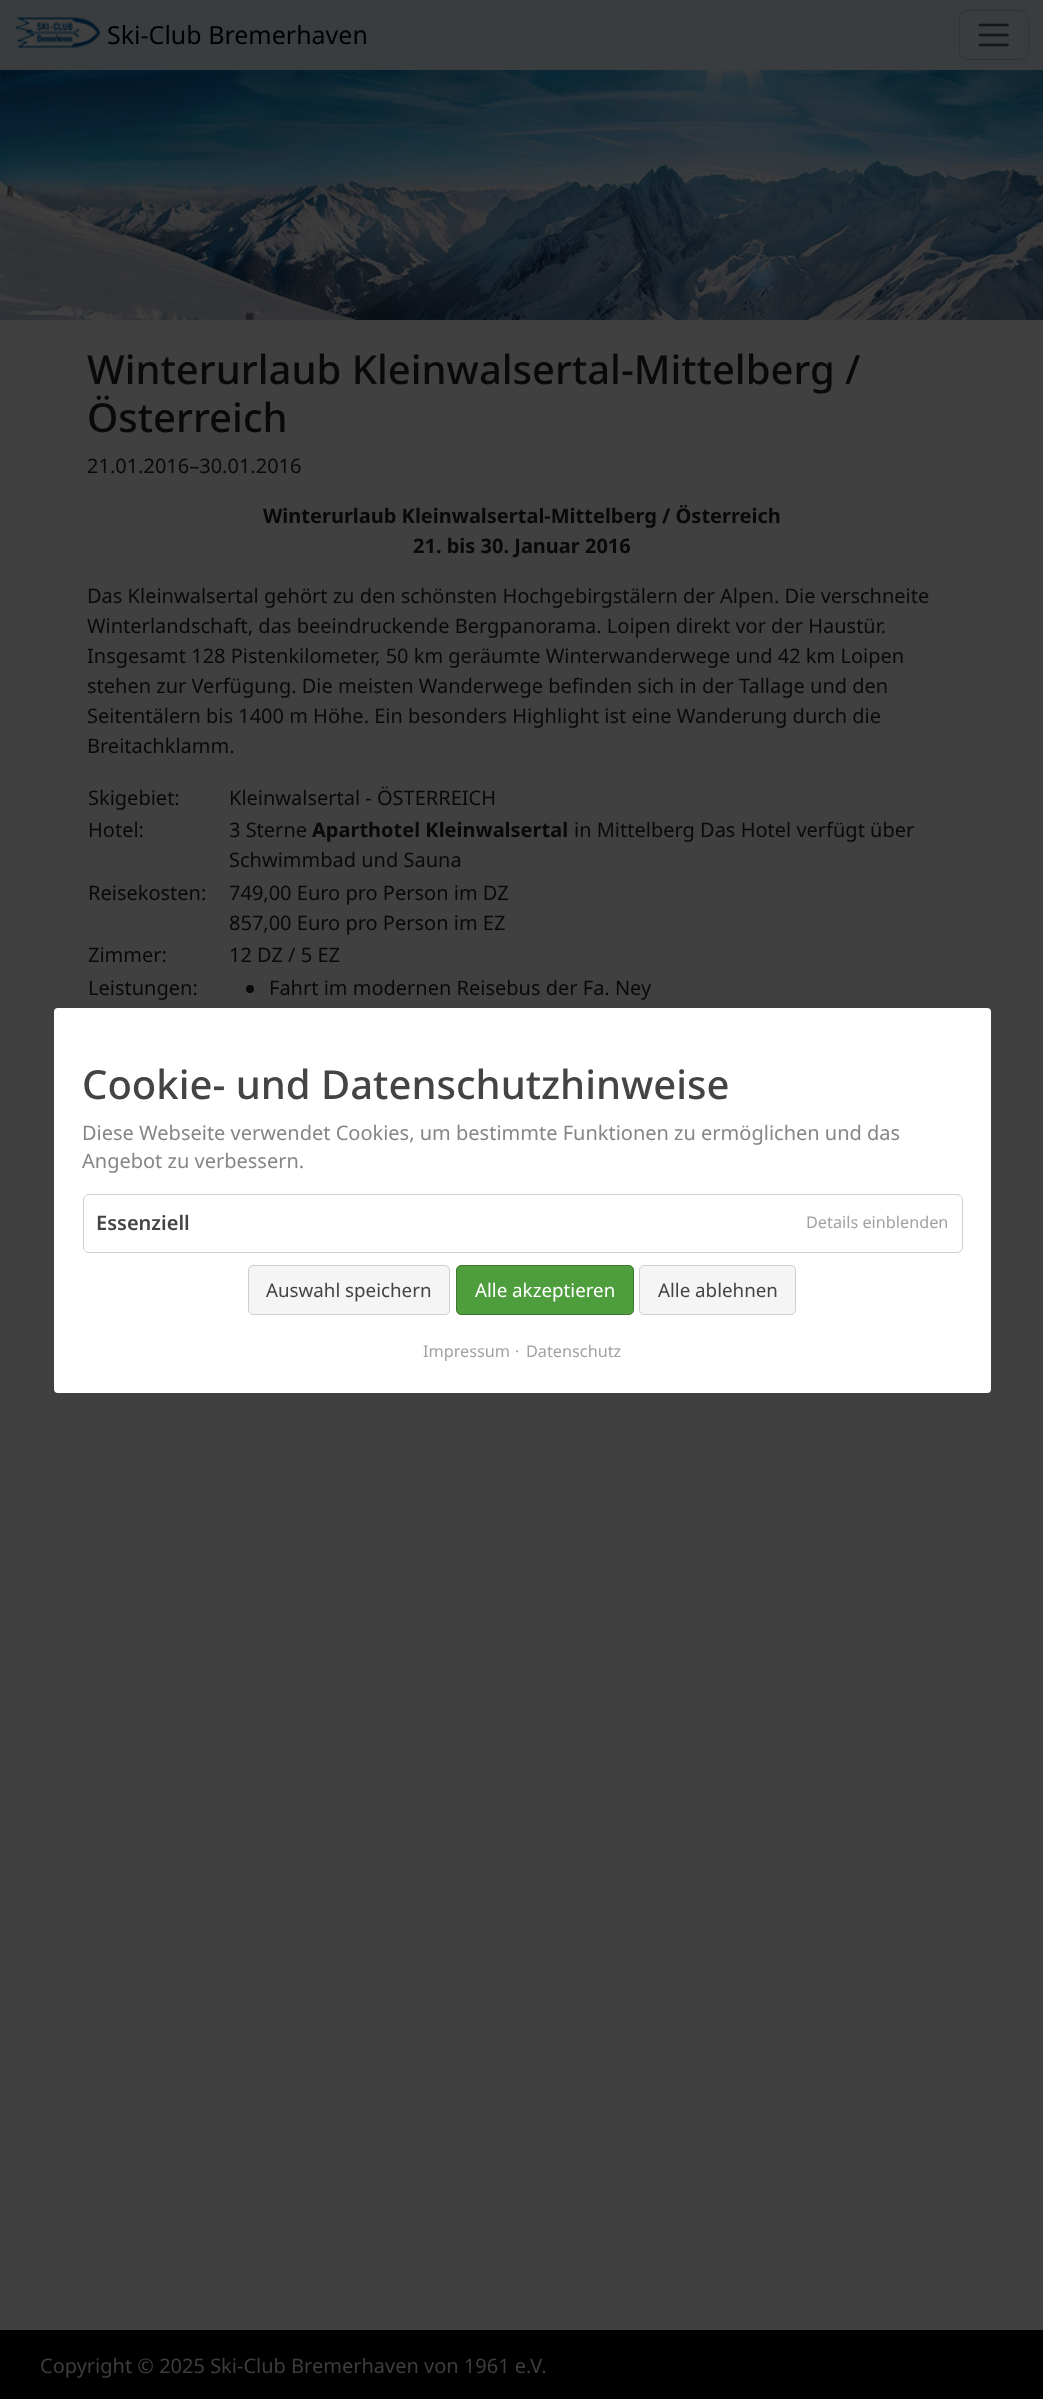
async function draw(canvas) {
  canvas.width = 1043;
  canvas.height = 2399;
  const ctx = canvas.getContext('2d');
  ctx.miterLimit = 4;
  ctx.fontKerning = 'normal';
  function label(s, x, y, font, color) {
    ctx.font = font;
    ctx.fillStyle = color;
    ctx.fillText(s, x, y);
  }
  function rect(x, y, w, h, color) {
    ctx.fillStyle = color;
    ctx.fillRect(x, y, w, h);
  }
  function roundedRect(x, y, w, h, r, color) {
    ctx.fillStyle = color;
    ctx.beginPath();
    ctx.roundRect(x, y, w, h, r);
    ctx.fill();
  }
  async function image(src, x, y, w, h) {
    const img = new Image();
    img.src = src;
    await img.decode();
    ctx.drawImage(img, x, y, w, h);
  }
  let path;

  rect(0, 0, 1043, 2399, '#404040');
  rect(0, 0, 1043, 70, '#393d3f');
  await image('assets/img1.png', 15, 17, 85, 31);
  label('Ski-Club Bremerhaven', 107, 44, '25px Noto Sans', '#000');
  ctx.beginPath();
  ctx.roundRect(959.5, 10.5, 69, 49, 7.5);
  ctx.strokeStyle = '#303436';
  ctx.stroke();
  path = new Path2D('M980 25H1007.5M980 35H1007.5M980 45H1007.5');
  ctx.strokeStyle = '#151618';
  ctx.lineWidth = 2.5;
  ctx.lineCap = 'round';
  ctx.stroke(path);
  await image('assets/img2.png', 0, 70, 1043, 250);
  label('Winterurlaub Kleinwalsertal-Mittelberg /', 87, 384, '500 40px Noto Sans', '#08090a');
  label('Österreich', 87, 432, '500 40px Noto Sans', '#08090a');
  label('21.01.2016–30.01.2016', 87, 473, '20px Noto Sans', '#08090a');
  label('Winterurlaub Kleinwalsertal-Mittelberg / Österreich', 263, 523, 'bold 20px Noto Sans', '#08090a');
  label('21. bis 30. Januar 2016', 413, 553, 'bold 20px Noto Sans', '#08090a');
  label('Das Kleinwalsertal gehört zu den schönsten Hochgebirgstälern der Alpen. Die verschneite', 87, 603, '20px Noto Sans', '#08090a');
  label('Winterlandschaft, das beeindruckende Bergpanorama. Loipen direkt vor der Haustür.', 87, 633, '20px Noto Sans', '#08090a');
  label('Insgesamt 128 Pistenkilometer, 50 km geräumte Winterwanderwege und 42 km Loipen', 87, 663, '20px Noto Sans', '#08090a');
  label('stehen zur Verfügung. Die meisten Wanderwege befinden sich in der Tallage und den', 87, 693, '20px Noto Sans', '#08090a');
  label('Seitentälern bis 1400 m Höhe. Ein besonders Highlight ist eine Wanderung durch die', 87, 723, '20px Noto Sans', '#08090a');
  label('Breitachklamm.', 87, 753, '20px Noto Sans', '#08090a');
  label('Skigebiet:', 88, 805, '20px Noto Sans', '#08090a');
  label('Kleinwalsertal - ÖSTERREICH', 229, 805, '20px Noto Sans', '#08090a');
  label('Hotel:', 88, 837, '20px Noto Sans', '#08090a');
  label('3 Sterne', 229, 837, '20px Noto Sans', '#08090a');
  label('Aparthotel Kleinwalsertal', 312, 837, 'bold 20px Noto Sans', '#08090a');
  label('in Mittelberg Das Hotel verfügt über', 574, 837, '20px Noto Sans', '#08090a');
  label('Schwimmbad und Sauna', 229, 867, '20px Noto Sans', '#08090a');
  label('Reisekosten:', 88, 900, '20px Noto Sans', '#08090a');
  label('749,00 Euro pro Person im DZ', 229, 900, '20px Noto Sans', '#08090a');
  label('857,00 Euro pro Person im EZ', 229, 930, '20px Noto Sans', '#08090a');
  label('Zimmer:', 88, 962, '20px Noto Sans', '#08090a');
  label('12 DZ / 5 EZ', 229, 962, '20px Noto Sans', '#08090a');
  label('Leistungen:', 88, 995, '20px Noto Sans', '#08090a');
  ctx.beginPath();
  ctx.arc(250, 989, 4, 0, 2 * Math.PI);
  ctx.fill();
  label('Fahrt im modernen Reisebus der Fa. Ney', 269, 995, '20px Noto Sans', '#08090a');
  rect(0, 2330, 1043, 69, '#000');
  label('Copyright © 2025 Ski-Club Bremerhaven von 1961 e.V.', 40, 2373, '20px Noto Sans', '#3d3d3c');
  roundedRect(54, 1008, 937, 385, 4, '#fff');
  label('Cookie- und Datenschutzhinweise', 82, 1099, '500 40px Noto Sans', '#444');
  label('Diese Webseite verwendet Cookies, um bestimmte Funktionen zu ermöglichen und das', 82, 1140, '20px Noto Sans', '#868686');
  label('Angebot zu verbessern.', 82, 1168, '20px Noto Sans', '#868686');
  ctx.beginPath();
  ctx.roundRect(83.5, 1194.5, 879, 58, 5.5);
  ctx.strokeStyle = '#d0d0d0';
  ctx.lineWidth = 1;
  ctx.stroke();
  label('Essenziell', 96, 1230, '600 20px Noto Sans', '#444');
  label('Details einblenden', 806, 1228, '16.25px Noto Sans', '#a2a2a2');
  ctx.fillStyle = '#f5f5f5';
  ctx.beginPath();
  ctx.roundRect(248.5, 1265.5, 201, 49, 4.5);
  ctx.fill();
  ctx.strokeStyle = '#cfcfcf';
  ctx.stroke();
  label('Auswahl speichern', 266, 1297, '18.75px Noto Sans', '#444');
  ctx.fillStyle = '#4e9e3e';
  ctx.beginPath();
  ctx.roundRect(456.5, 1265.5, 177, 49, 4.5);
  ctx.fill();
  ctx.strokeStyle = '#3e7830';
  ctx.stroke();
  label('Alle akzeptieren', 475, 1297, '18.75px Noto Sans', '#fff');
  ctx.fillStyle = '#f5f5f5';
  ctx.beginPath();
  ctx.roundRect(639.5, 1265.5, 156, 49, 4.5);
  ctx.fill();
  ctx.strokeStyle = '#cfcfcf';
  ctx.stroke();
  label('Alle ablehnen', 658, 1297, '18.75px Noto Sans', '#444');
  label('Impressum', 423, 1357, '16.25px Noto Sans', '#a2a2a2');
  label('·', 515, 1357, '16.25px Noto Sans', '#a2a2a2');
  label('Datenschutz', 526, 1357, '16.25px Noto Sans', '#a2a2a2');
}

draw(document.querySelector('canvas'));
